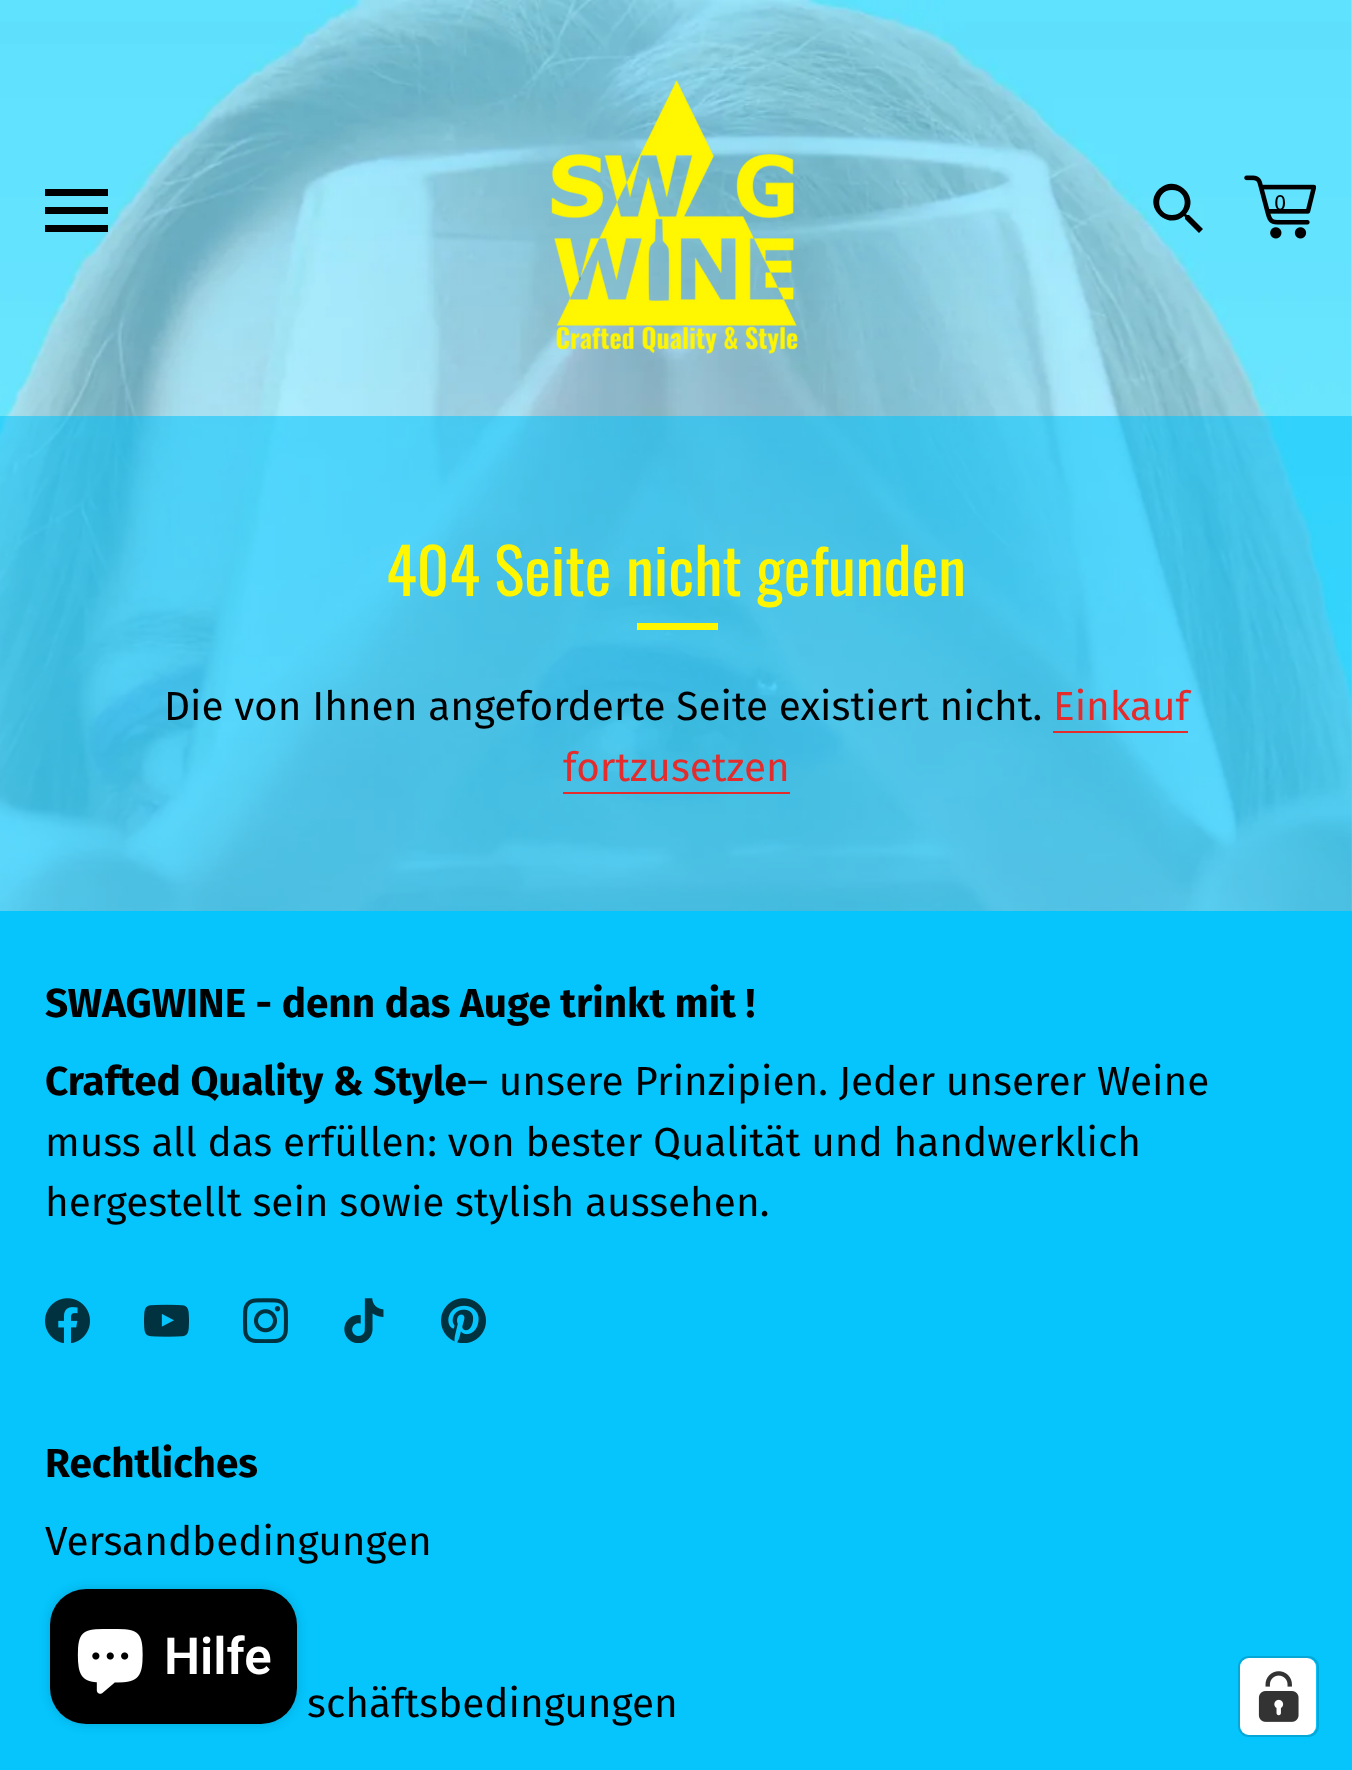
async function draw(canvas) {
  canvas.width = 1352;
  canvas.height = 1770;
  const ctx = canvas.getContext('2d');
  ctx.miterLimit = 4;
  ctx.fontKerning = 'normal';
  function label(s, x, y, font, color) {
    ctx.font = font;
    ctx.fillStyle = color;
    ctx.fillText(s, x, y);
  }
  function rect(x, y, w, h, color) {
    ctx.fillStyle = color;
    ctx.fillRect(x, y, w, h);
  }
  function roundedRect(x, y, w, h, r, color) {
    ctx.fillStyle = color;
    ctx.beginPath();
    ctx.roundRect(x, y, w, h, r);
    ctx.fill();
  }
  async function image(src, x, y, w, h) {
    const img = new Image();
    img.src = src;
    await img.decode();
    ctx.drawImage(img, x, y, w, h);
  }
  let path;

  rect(0, 0, 1352, 1770, '#fff');
  await image('assets/img1.png', 0, 0, 1352, 911);
  rect(45, 189, 63, 7, '#000');
  rect(45, 207, 63, 7, '#000');
  rect(45, 225, 63, 7, '#000');
  await image('assets/img2.png', 551, 80, 247, 274);
  path = new Path2D('M1189 215H1187L1186 214C1201 197 1176 173 1159 189C1142 206 1167 231 1184 216L1185 217V219L1199 233L1203 229ZM1172 215C1155 215 1155 190 1172 190C1189 190 1189 215 1172 215Z');
  ctx.fill(path);
  await image('assets/img3.png', 1244, 175, 72, 64);
  label('0', 1274, 210, '22px Fira Sans', '#000');
  rect(0, 416, 1352, 495, '#05c5fc8f');
  label('404 Seite nicht gefunden', 386, 596, '63.25px Oswald', '#fff600');
  rect(637, 623, 81, 7, '#fff600');
  label('Die von Ihnen angeforderte Seite existiert nicht.', 164, 720, '40.5px Fira Sans', '#000');
  label('Einkauf', 1053, 720, '40.5px Fira Sans', '#e32c2b');
  rect(1053, 731, 135, 2, '#e32c2b');
  label('fortzusetzen', 563, 781, '40.5px Fira Sans', '#e32c2b');
  rect(563, 792, 227, 2, '#e32c2b');
  rect(0, 911, 1352, 859, '#05c5fc');
  label('SWAGWINE - denn das Auge trinkt mit !', 45, 1017, 'bold 40.5px Fira Sans', '#000');
  label('Crafted Quality & Style', 45, 1095, 'bold 40.5px Fira Sans', '#000');
  label('– unsere Prinzipien. Jeder unserer Weine', 467, 1095, '40.5px Fira Sans', '#000');
  label('muss all das erfüllen: von bester Qualität und handwerklich', 45, 1156, '40.5px Fira Sans', '#000');
  label('hergestellt sein sowie stylish aussehen.', 45, 1216, '40.5px Fira Sans', '#000');
  await image('assets/img4.png', 45, 1298, 45, 45);
  await image('assets/img5.png', 144, 1304, 45, 33);
  await image('assets/img6.png', 243, 1298, 45, 45);
  await image('assets/img7.png', 344, 1298, 40, 45);
  await image('assets/img8.png', 441, 1298, 45, 45);
  label('Rechtliches', 45, 1477, 'bold 40.5px Fira Sans', '#000');
  label('Versandbedingungen', 45, 1555, '40.5px Fira Sans', '#000');
  label('schäftsbedingungen', 307, 1717, '40.5px Fira Sans', '#000');
  ctx.fillStyle = '#00000026';
  ctx.filter = 'blur(5.5px)';
  ctx.beginPath();
  ctx.roundRect(50, 1589, 247, 135, 36);
  ctx.fill();
  ctx.filter = 'none';
  roundedRect(50, 1589, 247, 135, 36, '#000');
  await image('assets/img9.png', 77, 1629, 66, 65);
  label('Hilfe', 164, 1674, '600 51px Roboto', '#fff');
  ctx.beginPath();
  ctx.roundRect(1239, 1657, 79, 79, 10);
  ctx.strokeStyle = '#04a7d6';
  ctx.lineWidth = 2;
  ctx.stroke();
  roundedRect(1240, 1658, 76, 77, 9, '#fff');
  await image('assets/img10.png', 1258, 1671, 41, 51);
}

draw(document.querySelector('canvas'));
